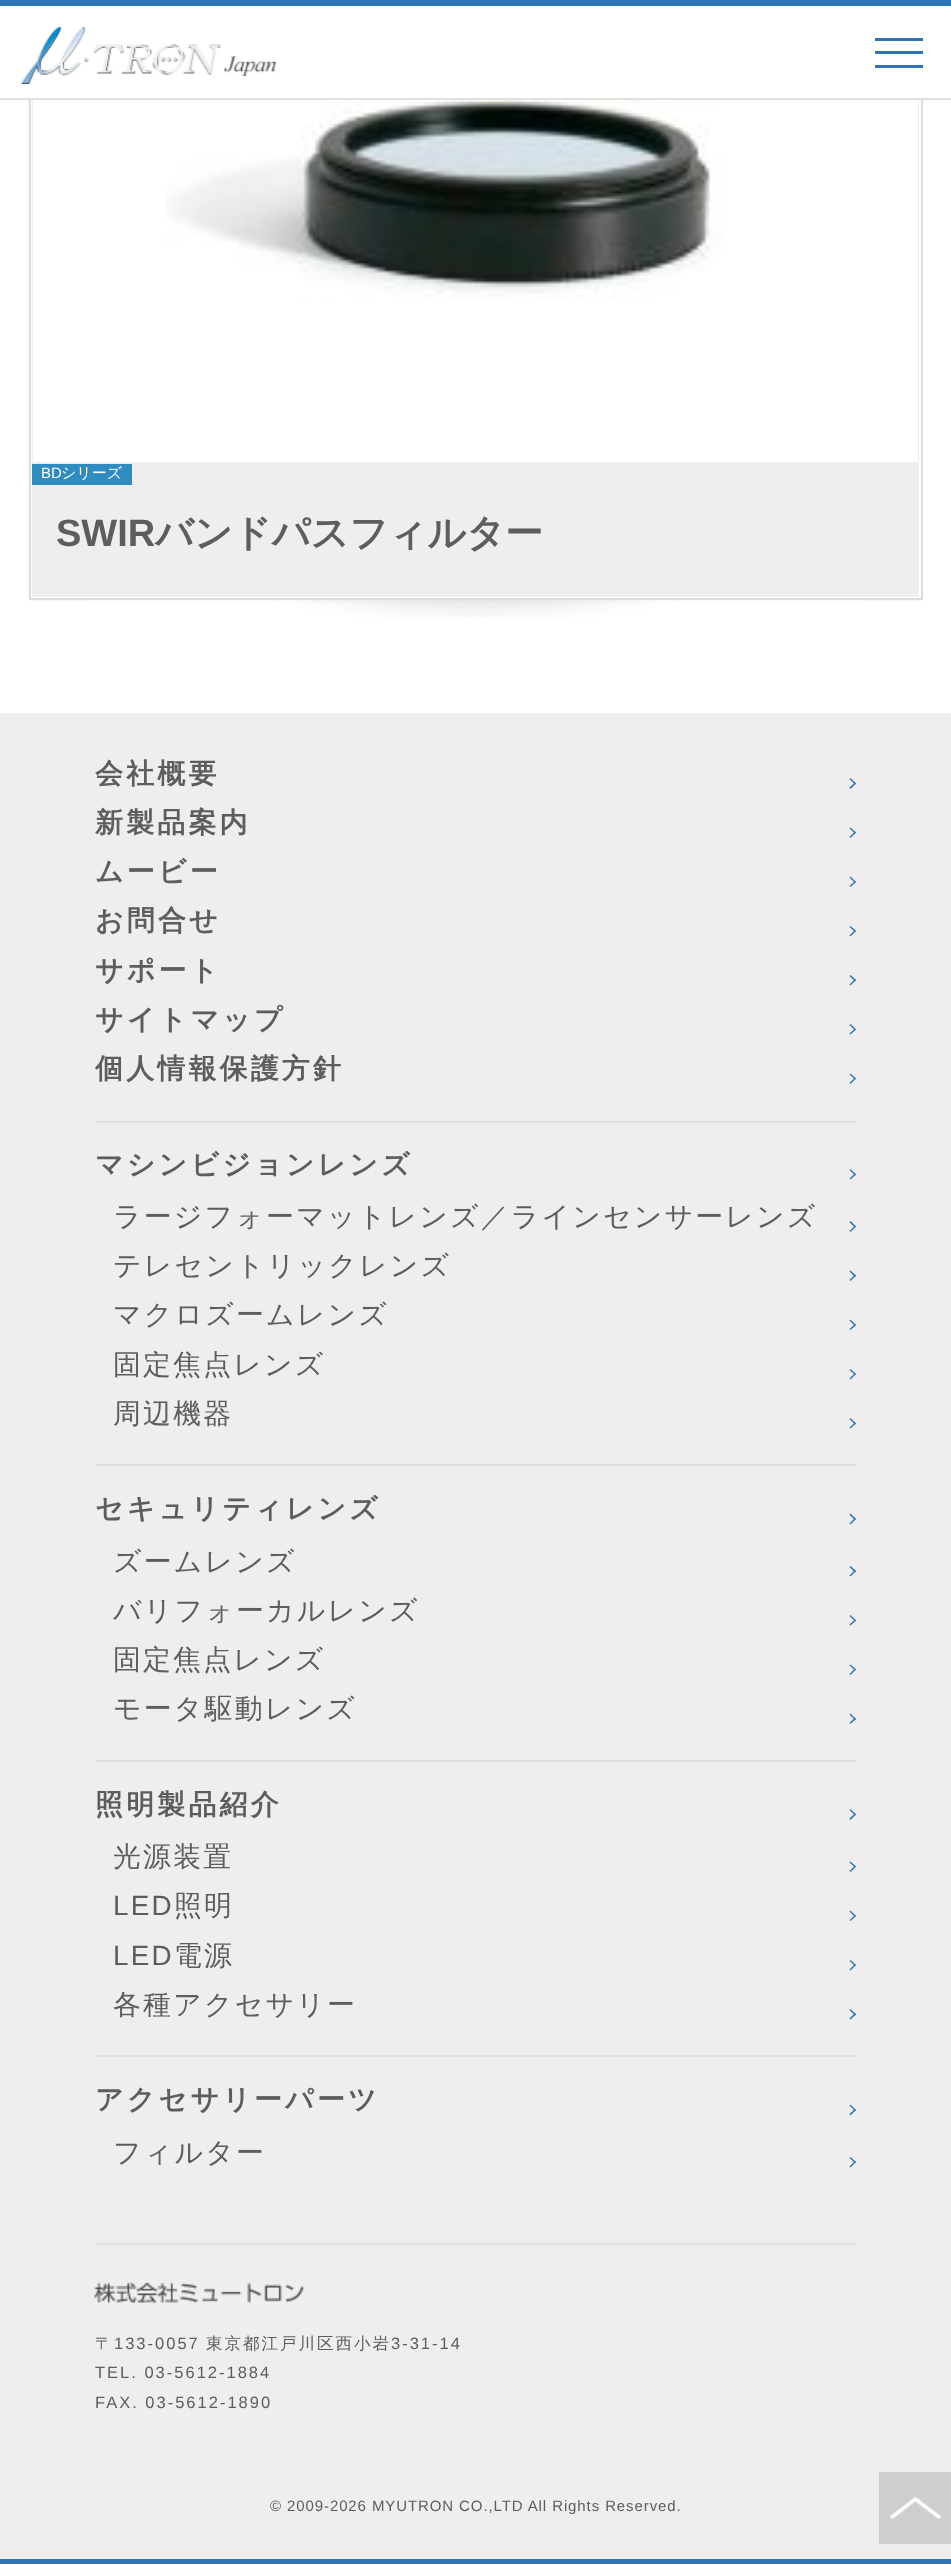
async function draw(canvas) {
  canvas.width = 951;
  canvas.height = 2564;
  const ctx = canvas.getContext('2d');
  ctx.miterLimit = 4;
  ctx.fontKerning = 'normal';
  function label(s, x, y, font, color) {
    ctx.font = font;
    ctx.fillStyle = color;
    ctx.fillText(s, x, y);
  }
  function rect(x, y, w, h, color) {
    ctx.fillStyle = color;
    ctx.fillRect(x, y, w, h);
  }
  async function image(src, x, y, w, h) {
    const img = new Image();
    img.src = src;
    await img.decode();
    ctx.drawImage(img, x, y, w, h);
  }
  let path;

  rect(0, 0, 951, 2564, '#fff');
  ctx.fillStyle = '#ccc';
  ctx.filter = 'blur(1.5px)';
  ctx.beginPath();
  ctx.rect(30, -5, 891, 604);
  ctx.fill();
  ctx.filter = 'none';
  rect(32, 100, 887, 497, '#efeded');
  ctx.strokeStyle = '#fff';
  ctx.lineWidth = 2;
  ctx.strokeRect(31, -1, 889, 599);
  ctx.strokeStyle = '#dedddd';
  ctx.strokeRect(30, -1, 892, 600);
  rect(28, 6, 895, 92, '#fff');
  rect(0, 0, 951, 6, '#2f75b6');
  rect(0, 98, 951, 2, '#e1e0e0');
  await image('assets/img1.png', 21, 27, 255, 57);
  rect(875, 38, 48, 3, '#2f75b6');
  rect(875, 51, 48, 3, '#2f75b6');
  rect(875, 65, 48, 3, '#2f75b6');
  rect(33, 100, 885, 362, '#fff');
  await image('assets/img2.png', 165, 100, 557, 201);
  rect(32, 464, 100, 21, '#2f8cc1');
  label('BD', 41, 478, '15px Liberation Sans', '#fff');
  label('シリーズ', 61, 478, '500 15px WenQuanYi Zen Hei', '#fff');
  label('SWIR', 56, 546, 'bold 38px Liberation Sans', '#5d5d5d');
  label('バンドパスフィルター', 155, 546, 'bold 38px WenQuanYi Zen Hei', '#5d5d5d');
  await image('assets/img3.png', 90, 600, 772, 19);
  rect(0, 713, 951, 1846, '#efeded');
  rect(0, 2559, 951, 5, '#2f75b6');
  ctx.letterSpacing = '3.25px';
  label('会社概要', 95, 783, 'bold 27.9px WenQuanYi Zen Hei', '#5d5d5d');
  ctx.fillStyle = '#2f75b6';
  path = new Path2D('M850.5 778L856 783.5L855 784.5L849.5 779Z');
  ctx.fill(path);
  path = new Path2D('M855 782.5L856 783.5L850.5 789L849.5 787.5Z');
  ctx.fill(path);
  label('新製品案内', 95, 832, 'bold 27.9px WenQuanYi Zen Hei', '#5d5d5d');
  ctx.fillStyle = '#2f75b6';
  path = new Path2D('M850.5 827.5L856 832.5L855 833.5L849.5 828.5Z');
  ctx.fill(path);
  path = new Path2D('M855 831.5L856 832.5L850.5 838L849.5 837Z');
  ctx.fill(path);
  label('ムービー', 95, 881, 'bold 27.9px WenQuanYi Zen Hei', '#5d5d5d');
  ctx.fillStyle = '#2f75b6';
  path = new Path2D('M850.5 876.5L856 882L855 883L849.5 877.5Z');
  ctx.fill(path);
  path = new Path2D('M855 881L856 882L850.5 887L849.5 886Z');
  ctx.fill(path);
  label('お問合せ', 95, 930, 'bold 27.9px WenQuanYi Zen Hei', '#5d5d5d');
  ctx.fillStyle = '#2f75b6';
  path = new Path2D('M850.5 926L856 931L855 932L849.5 927Z');
  ctx.fill(path);
  path = new Path2D('M855 930L856 931L850.5 936.5L849.5 935.5Z');
  ctx.fill(path);
  label('サポート', 95, 980, 'bold 27.9px WenQuanYi Zen Hei', '#5d5d5d');
  ctx.fillStyle = '#2f75b6';
  path = new Path2D('M850.5 975L856 980L855 981.5L849.5 976Z');
  ctx.fill(path);
  path = new Path2D('M855 979L856 980L850.5 985.5L849.5 984.5Z');
  ctx.fill(path);
  label('サイトマップ', 95, 1029, 'bold 27.9px WenQuanYi Zen Hei', '#5d5d5d');
  ctx.fillStyle = '#2f75b6';
  path = new Path2D('M850.5 1024L856 1029.5L855 1030.5L849.5 1025Z');
  ctx.fill(path);
  path = new Path2D('M855 1028.5L856 1029.5L850.5 1034.5L849.5 1033.5Z');
  ctx.fill(path);
  label('個人情報保護方針', 95, 1078, 'bold 27.9px WenQuanYi Zen Hei', '#5d5d5d');
  ctx.fillStyle = '#2f75b6';
  path = new Path2D('M850.5 1073.5L856 1078.5L855 1079.5L849.5 1074.5Z');
  ctx.fill(path);
  path = new Path2D('M855 1077.5L856 1078.5L850.5 1084L849.5 1083Z');
  ctx.fill(path);
  rect(95, 1121, 762, 2, '#e1dfdf');
  label('マシンビジョンレンズ', 95, 1174, 'bold 27.9px WenQuanYi Zen Hei', '#5d5d5d');
  ctx.fillStyle = '#2f75b6';
  path = new Path2D('M850.5 1169L856 1174.5L855 1175.5L849.5 1170Z');
  ctx.fill(path);
  path = new Path2D('M855 1173.5L856 1174.5L850.5 1179.5L849.5 1178.5Z');
  ctx.fill(path);
  ctx.letterSpacing = '2.2px';
  label('ラージフォーマットレンズ／ラインセンサーレンズ', 113, 1226, '500 27.9px WenQuanYi Zen Hei', '#5d5d5d');
  ctx.fillStyle = '#2f75b6';
  path = new Path2D('M850.5 1221L856 1226.5L855 1227.5L849.5 1222.5Z');
  ctx.fill(path);
  path = new Path2D('M855 1225.5L856 1226.5L850.5 1232L849.5 1231Z');
  ctx.fill(path);
  label('テレセントリックレンズ', 113, 1275, '500 27.9px WenQuanYi Zen Hei', '#5d5d5d');
  ctx.fillStyle = '#2f75b6';
  path = new Path2D('M850.5 1270.5L856 1275.5L855 1277L849.5 1271.5Z');
  ctx.fill(path);
  path = new Path2D('M855 1274.5L856 1275.5L850.5 1281L849.5 1280Z');
  ctx.fill(path);
  label('マクロズームレンズ', 113, 1324, '500 27.9px WenQuanYi Zen Hei', '#5d5d5d');
  ctx.fillStyle = '#2f75b6';
  path = new Path2D('M850.5 1319.5L856 1325L855 1326L849.5 1320.5Z');
  ctx.fill(path);
  path = new Path2D('M855 1324L856 1325L850.5 1330L849.5 1329Z');
  ctx.fill(path);
  label('固定焦点レンズ', 113, 1374, '500 27.9px WenQuanYi Zen Hei', '#5d5d5d');
  ctx.fillStyle = '#2f75b6';
  path = new Path2D('M850.5 1369L856 1374L855 1375L849.5 1370Z');
  ctx.fill(path);
  path = new Path2D('M855 1373L856 1374L850.5 1379.5L849.5 1378.5Z');
  ctx.fill(path);
  label('周辺機器', 113, 1423, '500 27.9px WenQuanYi Zen Hei', '#5d5d5d');
  ctx.fillStyle = '#2f75b6';
  path = new Path2D('M850.5 1418L856 1423.5L855 1424.5L849.5 1419Z');
  ctx.fill(path);
  path = new Path2D('M855 1422.5L856 1423.5L850.5 1428.5L849.5 1427.5Z');
  ctx.fill(path);
  rect(95, 1464, 762, 2, '#e1dfdf');
  ctx.letterSpacing = '3.25px';
  label('セキュリティレンズ', 95, 1518, 'bold 27.9px WenQuanYi Zen Hei', '#5d5d5d');
  ctx.fillStyle = '#2f75b6';
  path = new Path2D('M850.5 1513.5L856 1519L855 1520L849.5 1515Z');
  ctx.fill(path);
  path = new Path2D('M855 1518L856 1519L850.5 1524.5L849.5 1523.5Z');
  ctx.fill(path);
  ctx.letterSpacing = '2.2px';
  label('ズームレンズ', 113, 1571, '500 27.9px WenQuanYi Zen Hei', '#5d5d5d');
  ctx.fillStyle = '#2f75b6';
  path = new Path2D('M850.5 1566L856 1571L855 1572.5L849.5 1567Z');
  ctx.fill(path);
  path = new Path2D('M855 1570L856 1571L850.5 1576.5L849.5 1575.5Z');
  ctx.fill(path);
  label('バリフォーカルレンズ', 113, 1620, '500 27.9px WenQuanYi Zen Hei', '#5d5d5d');
  ctx.fillStyle = '#2f75b6';
  path = new Path2D('M850.5 1615L856 1620.5L855 1621.5L849.5 1616Z');
  ctx.fill(path);
  path = new Path2D('M855 1619.5L856 1620.5L850.5 1625.5L849.5 1624.5Z');
  ctx.fill(path);
  label('固定焦点レンズ', 113, 1669, '500 27.9px WenQuanYi Zen Hei', '#5d5d5d');
  ctx.fillStyle = '#2f75b6';
  path = new Path2D('M850.5 1664.5L856 1669.5L855 1670.5L849.5 1665.5Z');
  ctx.fill(path);
  path = new Path2D('M855 1668.5L856 1669.5L850.5 1675L849.5 1674Z');
  ctx.fill(path);
  label('モータ駆動レンズ', 113, 1718, '500 27.9px WenQuanYi Zen Hei', '#5d5d5d');
  ctx.fillStyle = '#2f75b6';
  path = new Path2D('M850.5 1713.5L856 1719L855 1720L849.5 1714.5Z');
  ctx.fill(path);
  path = new Path2D('M855 1717.5L856 1719L850.5 1724L849.5 1723Z');
  ctx.fill(path);
  rect(95, 1760, 762, 2, '#e1dfdf');
  ctx.letterSpacing = '3.25px';
  label('照明製品紹介', 95, 1814, 'bold 27.9px WenQuanYi Zen Hei', '#5d5d5d');
  ctx.fillStyle = '#2f75b6';
  path = new Path2D('M850.5 1809L856 1814.5L855 1815.5L849.5 1810Z');
  ctx.fill(path);
  path = new Path2D('M855 1813.5L856 1814.5L850.5 1820L849.5 1818.5Z');
  ctx.fill(path);
  ctx.letterSpacing = '2.2px';
  label('光源装置', 113, 1866, '500 27.9px WenQuanYi Zen Hei', '#5d5d5d');
  ctx.fillStyle = '#2f75b6';
  path = new Path2D('M850.5 1861.5L856 1866.5L855 1867.5L849.5 1862.5Z');
  ctx.fill(path);
  path = new Path2D('M855 1865.5L856 1866.5L850.5 1872L849.5 1871Z');
  ctx.fill(path);
  label('LED', 113, 1915, '27.9px Liberation Sans', '#5d5d5d');
  label('照明', 174, 1915, '500 27.9px WenQuanYi Zen Hei', '#5d5d5d');
  ctx.fillStyle = '#2f75b6';
  path = new Path2D('M850.5 1910.5L856 1916L855 1917L849.5 1911.5Z');
  ctx.fill(path);
  path = new Path2D('M855 1915L856 1916L850.5 1921L849.5 1920Z');
  ctx.fill(path);
  label('LED', 113, 1965, '27.9px Liberation Sans', '#5d5d5d');
  label('電源', 174, 1965, '500 27.9px WenQuanYi Zen Hei', '#5d5d5d');
  ctx.fillStyle = '#2f75b6';
  path = new Path2D('M850.5 1960L856 1965L855 1966L849.5 1961Z');
  ctx.fill(path);
  path = new Path2D('M855 1964L856 1965L850.5 1970.5L849.5 1969.5Z');
  ctx.fill(path);
  label('各種アクセサリー', 113, 2014, '500 27.9px WenQuanYi Zen Hei', '#5d5d5d');
  ctx.fillStyle = '#2f75b6';
  path = new Path2D('M850.5 2009L856 2014.5L855 2015.5L849.5 2010Z');
  ctx.fill(path);
  path = new Path2D('M855 2013L856 2014.5L850.5 2019.5L849.5 2018.5Z');
  ctx.fill(path);
  rect(95, 2055, 762, 2, '#e1dfdf');
  ctx.letterSpacing = '3.25px';
  label('アクセサリーパーツ', 95, 2109, 'bold 27.9px WenQuanYi Zen Hei', '#5d5d5d');
  ctx.fillStyle = '#2f75b6';
  path = new Path2D('M850.5 2104.5L856 2110L855 2111L849.5 2105.5Z');
  ctx.fill(path);
  path = new Path2D('M855 2109L856 2110L850.5 2115.5L849.5 2114Z');
  ctx.fill(path);
  ctx.letterSpacing = '2.2px';
  label('フィルター', 113, 2162, '500 27.9px WenQuanYi Zen Hei', '#5d5d5d');
  ctx.fillStyle = '#2f75b6';
  path = new Path2D('M850.5 2157L856 2162L855 2163L849.5 2158Z');
  ctx.fill(path);
  path = new Path2D('M855 2161L856 2162L850.5 2167.5L849.5 2166.5Z');
  ctx.fill(path);
  rect(95, 2243, 762, 2, '#e1dfdf');
  await image('assets/img4.png', 94, 2282, 210, 22);
  ctx.letterSpacing = '2px';
  label('〒', 95, 2349, '500 16.5px WenQuanYi Zen Hei', '#5d5d5d');
  label('133-0057', 114, 2349, '16.5px Liberation Sans', '#5d5d5d');
  label('東京都江戸川区西小岩', 206, 2349, '500 16.5px WenQuanYi Zen Hei', '#5d5d5d');
  label('3-31-14', 391, 2349, '16.5px Liberation Sans', '#5d5d5d');
  label('TEL. 03-5612-1884', 95, 2378, '16.5px Liberation Sans', '#5d5d5d');
  label('FAX. 03-5612-1890', 95, 2408, '16.5px Liberation Sans', '#5d5d5d');
  ctx.letterSpacing = '0.9px';
  label('© 2009-2026 MYUTRON CO.,LTD All Rights Reserved.', 270, 2511, '15px Liberation Sans', '#5d5d5d');
  await image('assets/img5.png', 879, 2472, 72, 72);
}

draw(document.querySelector('canvas'));
